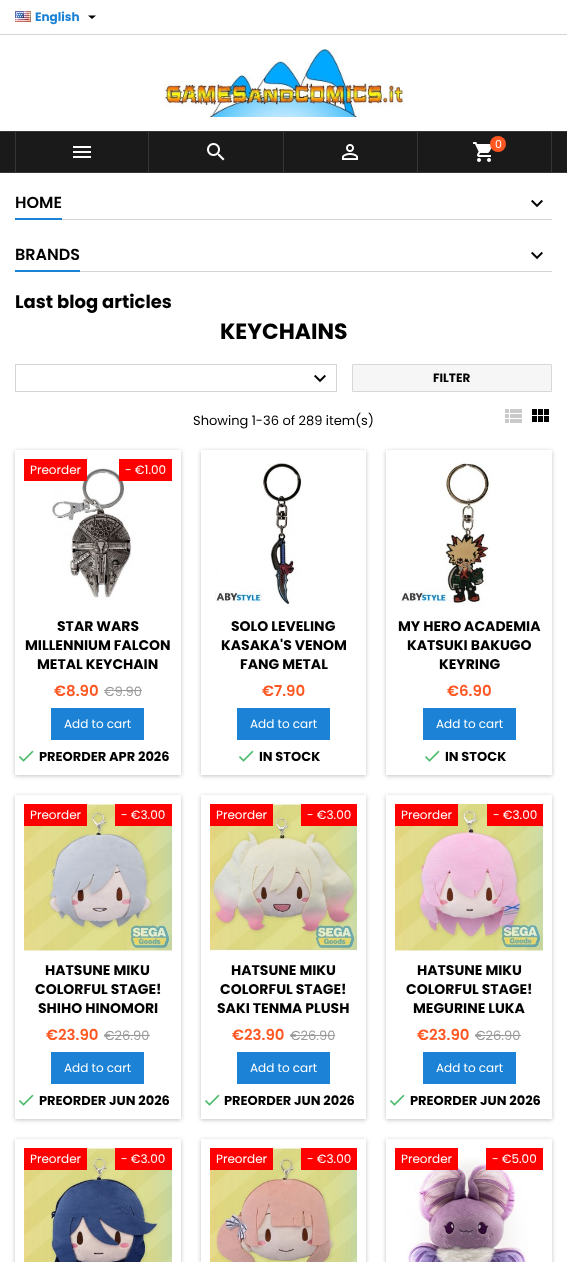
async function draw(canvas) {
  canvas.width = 567;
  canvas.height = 1262;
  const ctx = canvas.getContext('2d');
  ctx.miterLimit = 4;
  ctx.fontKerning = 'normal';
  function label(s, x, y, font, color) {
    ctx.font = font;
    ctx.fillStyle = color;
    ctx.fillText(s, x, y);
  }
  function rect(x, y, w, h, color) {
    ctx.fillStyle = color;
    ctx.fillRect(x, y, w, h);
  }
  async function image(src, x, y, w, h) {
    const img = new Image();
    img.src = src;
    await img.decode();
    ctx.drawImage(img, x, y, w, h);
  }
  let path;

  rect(0, 0, 567, 1262, '#fff');
  rect(0, 34, 567, 1, '#d6d4d4');
  await image('assets/img1.png', 15, 11, 16, 11);
  label('English', 35, 21, 'bold 12px Poppins', '#1b82d6');
  ctx.fillStyle = '#000';
  path = new Path2D('M88 15.5H96L92 19Z');
  ctx.fill(path);
  await image('assets/img2.png', 164, 49, 240, 68);
  rect(0, 132, 567, 40, '#1b1a1b');
  rect(0, 131, 567, 1, '#363636');
  rect(0, 172, 567, 1, '#363636');
  rect(148, 132, 1, 40, '#363636');
  rect(15, 132, 1, 40, '#363636');
  await image('assets/img3.png', 73, 146, 18, 12);
  rect(283, 132, 1, 40, '#363636');
  await image('assets/img4.png', 207, 143, 18, 18);
  rect(417, 132, 1, 40, '#363636');
  await image('assets/img5.png', 342, 144, 16, 16);
  rect(551, 132, 1, 40, '#363636');
  await image('assets/img6.png', 473, 142, 19, 20);
  ctx.fillStyle = '#ff5722';
  ctx.beginPath();
  ctx.arc(498, 144, 8, 0, 2 * Math.PI);
  ctx.fill();
  label('0', 495, 148, '11px Poppins', '#fff');
  rect(62, 219, 490, 1, '#d6d4d4');
  rect(15, 218, 47, 2, '#1b82d6');
  label('HOME', 15, 208, '600 16px Poppins', '#000');
  await image('assets/img7.png', 531, 199, 12, 9);
  rect(80, 271, 472, 1, '#d6d4d4');
  rect(15, 270, 65, 2, '#1b82d6');
  label('BRANDS', 15, 260, '600 16px Poppins', '#000');
  await image('assets/img7.png', 531, 251, 12, 9);
  label('Last blog articles', 15, 308, 'bold 18px Poppins', '#000');
  label('KEYCHAINS', 220, 339, 'bold 22px Poppins', '#000');
  ctx.strokeStyle = '#d6d4d4';
  ctx.strokeRect(15.5, 364.5, 321, 27);
  await image('assets/img7.png', 314, 374, 12, 9);
  ctx.fillStyle = '#f6f6f6';
  ctx.beginPath();
  ctx.rect(352.5, 364.5, 199, 27);
  ctx.fill();
  ctx.strokeStyle = '#d8d8d8';
  ctx.stroke();
  label('FILTER', 433, 382, 'bold 12px Poppins', '#000');
  label('Showing 1-36 of 289 item(s)', 193, 425, '13px Poppins', '#000');
  await image('assets/img8.png', 505, 409, 17, 14);
  await image('assets/img9.png', 532, 409, 17, 13);
  ctx.save();
  path = new Path2D('M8 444H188V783H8ZM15 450H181V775H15Z');
  ctx.clip(path, 'evenodd');
  ctx.fillStyle = '#0000003d';
  ctx.filter = 'blur(2px)';
  ctx.beginPath();
  ctx.rect(15, 451, 166, 325);
  ctx.fill();
  ctx.filter = 'none';
  ctx.restore();
  await image('assets/img10.png', 52, 468, 81, 133);
  rect(24, 459, 63, 22, '#f00');
  label('Preorder', 30, 474, '12px Poppins', '#fff');
  rect(119, 459, 53, 22, '#f00');
  label('- €1.00', 125, 474, '12px Poppins', '#fff');
  label('STAR WARS', 57, 631, 'bold 14px Poppins', '#000');
  label('MILLENNIUM FALCON', 25, 650, 'bold 14px Poppins', '#000');
  label('METAL KEYCHAIN', 37, 669, 'bold 14px Poppins', '#000');
  label('€8.90', 54, 696, '600 15px Poppins', '#ff5722');
  label('€9.90', 104, 696, '13px Poppins', '#999');
  rect(104, 690, 38, 1, '#999');
  rect(51, 708, 93, 32, '#1b82d6');
  label('Add to cart', 64, 728, '12px Poppins', '#fff');
  await image('assets/img11.png', 18, 750, 16, 12);
  label('PREORDER APR 2026', 39, 761, 'bold 13px Poppins', '#000');
  ctx.save();
  path = new Path2D('M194 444H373V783H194ZM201 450H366V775H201Z');
  ctx.clip(path, 'evenodd');
  ctx.fillStyle = '#0000003d';
  ctx.filter = 'blur(2px)';
  ctx.beginPath();
  ctx.rect(201, 451, 165, 325);
  ctx.fill();
  ctx.filter = 'none';
  ctx.restore();
  await image('assets/img12.png', 215, 459, 87, 146);
  label('SOLO LEVELING', 231, 631, 'bold 14px Poppins', '#000');
  label('KASAKA\'S VENOM', 221, 650, 'bold 14px Poppins', '#000');
  label('FANG METAL', 240, 669, 'bold 14px Poppins', '#000');
  label('€7.90', 262, 696, '600 15px Poppins', '#ff5722');
  rect(237, 708, 93, 32, '#1b82d6');
  label('Add to cart', 250, 728, '12px Poppins', '#fff');
  await image('assets/img11.png', 238, 750, 16, 12);
  label('IN STOCK', 259, 761, 'bold 13px Poppins', '#000');
  ctx.save();
  path = new Path2D('M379 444H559V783H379ZM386 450H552V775H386Z');
  ctx.clip(path, 'evenodd');
  ctx.fillStyle = '#0000003d';
  ctx.filter = 'blur(2px)';
  ctx.beginPath();
  ctx.rect(386, 451, 166, 325);
  ctx.fill();
  ctx.filter = 'none';
  ctx.restore();
  await image('assets/img13.png', 400, 459, 91, 147);
  label('MY HERO ACADEMIA', 398, 631, 'bold 14px Poppins', '#000');
  label('KATSUKI BAKUGO', 407, 650, 'bold 14px Poppins', '#000');
  label('KEYRING', 439, 669, 'bold 14px Poppins', '#000');
  label('€6.90', 447, 696, '600 15px Poppins', '#ff5722');
  rect(423, 708, 93, 32, '#1b82d6');
  label('Add to cart', 436, 728, '12px Poppins', '#fff');
  await image('assets/img11.png', 424, 750, 16, 12);
  label('IN STOCK', 445, 761, 'bold 13px Poppins', '#000');
  ctx.save();
  path = new Path2D('M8 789H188V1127H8ZM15 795H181V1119H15Z');
  ctx.clip(path, 'evenodd');
  ctx.fillStyle = '#0000003d';
  ctx.filter = 'blur(2px)';
  ctx.beginPath();
  ctx.rect(15, 796, 166, 324);
  ctx.fill();
  ctx.filter = 'none';
  ctx.restore();
  await image('assets/img14.png', 24, 804, 148, 147);
  rect(24, 804, 63, 22, '#f00');
  label('Preorder', 30, 819, '12px Poppins', '#fff');
  rect(115, 804, 57, 22, '#f00');
  label('- €3.00', 121, 819, '12px Poppins', '#fff');
  label('HATSUNE MIKU', 45, 975, 'bold 14px Poppins', '#000');
  label('COLORFUL STAGE!', 35, 994, 'bold 14px Poppins', '#000');
  label('SHIHO HINOMORI', 38, 1013, 'bold 14px Poppins', '#000');
  label('€23.90', 46, 1040, '600 15px Poppins', '#ff5722');
  label('€26.90', 104, 1040, '13px Poppins', '#999');
  rect(104, 1035, 46, 1, '#999');
  rect(51, 1052, 93, 32, '#1b82d6');
  label('Add to cart', 64, 1072, '12px Poppins', '#fff');
  await image('assets/img11.png', 18, 1094, 16, 12);
  label('PREORDER JUN 2026', 39, 1105, 'bold 13px Poppins', '#000');
  ctx.save();
  path = new Path2D('M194 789H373V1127H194ZM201 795H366V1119H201Z');
  ctx.clip(path, 'evenodd');
  ctx.fillStyle = '#0000003d';
  ctx.filter = 'blur(2px)';
  ctx.beginPath();
  ctx.rect(201, 796, 165, 324);
  ctx.fill();
  ctx.filter = 'none';
  ctx.restore();
  await image('assets/img15.png', 210, 804, 147, 147);
  rect(210, 804, 63, 22, '#f00');
  label('Preorder', 216, 819, '12px Poppins', '#fff');
  rect(301, 804, 56, 22, '#f00');
  label('- €3.00', 307, 819, '12px Poppins', '#fff');
  label('HATSUNE MIKU', 231, 975, 'bold 14px Poppins', '#000');
  label('COLORFUL STAGE!', 220, 994, 'bold 14px Poppins', '#000');
  label('SAKI TENMA PLUSH', 217, 1013, 'bold 14px Poppins', '#000');
  label('€23.90', 232, 1040, '600 15px Poppins', '#ff5722');
  label('€26.90', 290, 1040, '13px Poppins', '#999');
  rect(290, 1035, 45, 1, '#999');
  rect(237, 1052, 93, 32, '#1b82d6');
  label('Add to cart', 250, 1072, '12px Poppins', '#fff');
  await image('assets/img11.png', 204, 1094, 16, 12);
  label('PREORDER JUN 2026', 224, 1105, 'bold 13px Poppins', '#000');
  ctx.save();
  path = new Path2D('M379 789H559V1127H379ZM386 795H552V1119H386Z');
  ctx.clip(path, 'evenodd');
  ctx.fillStyle = '#0000003d';
  ctx.filter = 'blur(2px)';
  ctx.beginPath();
  ctx.rect(386, 796, 166, 324);
  ctx.fill();
  ctx.filter = 'none';
  ctx.restore();
  await image('assets/img16.png', 395, 804, 148, 147);
  rect(395, 804, 63, 22, '#f00');
  label('Preorder', 401, 819, '12px Poppins', '#fff');
  rect(487, 804, 56, 22, '#f00');
  label('- €3.00', 493, 819, '12px Poppins', '#fff');
  label('HATSUNE MIKU', 417, 975, 'bold 14px Poppins', '#000');
  label('COLORFUL STAGE!', 406, 994, 'bold 14px Poppins', '#000');
  label('MEGURINE LUKA', 413, 1013, 'bold 14px Poppins', '#000');
  label('€23.90', 417, 1040, '600 15px Poppins', '#ff5722');
  label('€26.90', 475, 1040, '13px Poppins', '#999');
  rect(475, 1035, 46, 1, '#999');
  rect(423, 1052, 93, 32, '#1b82d6');
  label('Add to cart', 436, 1072, '12px Poppins', '#fff');
  await image('assets/img11.png', 389, 1094, 16, 12);
  label('PREORDER JUN 2026', 410, 1105, 'bold 13px Poppins', '#000');
  ctx.save();
  path = new Path2D('M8 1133H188V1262H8ZM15 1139H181V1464H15Z');
  ctx.clip(path, 'evenodd');
  ctx.fillStyle = '#0000003d';
  ctx.filter = 'blur(2px)';
  ctx.beginPath();
  ctx.rect(15, 1140, 166, 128);
  ctx.fill();
  ctx.filter = 'none';
  ctx.restore();
  await image('assets/img17.png', 24, 1148, 148, 114);
  rect(24, 1148, 63, 22, '#f00');
  label('Preorder', 30, 1163, '12px Poppins', '#fff');
  rect(115, 1148, 57, 22, '#f00');
  label('- €3.00', 121, 1163, '12px Poppins', '#fff');
  ctx.save();
  path = new Path2D('M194 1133H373V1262H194ZM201 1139H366V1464H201Z');
  ctx.clip(path, 'evenodd');
  ctx.fillStyle = '#0000003d';
  ctx.filter = 'blur(2px)';
  ctx.beginPath();
  ctx.rect(201, 1140, 165, 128);
  ctx.fill();
  ctx.filter = 'none';
  ctx.restore();
  await image('assets/img18.png', 210, 1148, 147, 114);
  rect(210, 1148, 63, 22, '#f00');
  label('Preorder', 216, 1163, '12px Poppins', '#fff');
  rect(301, 1148, 56, 22, '#f00');
  label('- €3.00', 307, 1163, '12px Poppins', '#fff');
  ctx.save();
  path = new Path2D('M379 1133H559V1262H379ZM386 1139H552V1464H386Z');
  ctx.clip(path, 'evenodd');
  ctx.fillStyle = '#0000003d';
  ctx.filter = 'blur(2px)';
  ctx.beginPath();
  ctx.rect(386, 1140, 166, 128);
  ctx.fill();
  ctx.filter = 'none';
  ctx.restore();
  await image('assets/img19.png', 406, 1157, 122, 105);
  rect(395, 1148, 63, 22, '#f00');
  label('Preorder', 401, 1163, '12px Poppins', '#fff');
  rect(486, 1148, 57, 22, '#f00');
  label('- €5.00', 492, 1163, '12px Poppins', '#fff');
}

draw(document.querySelector('canvas'));
